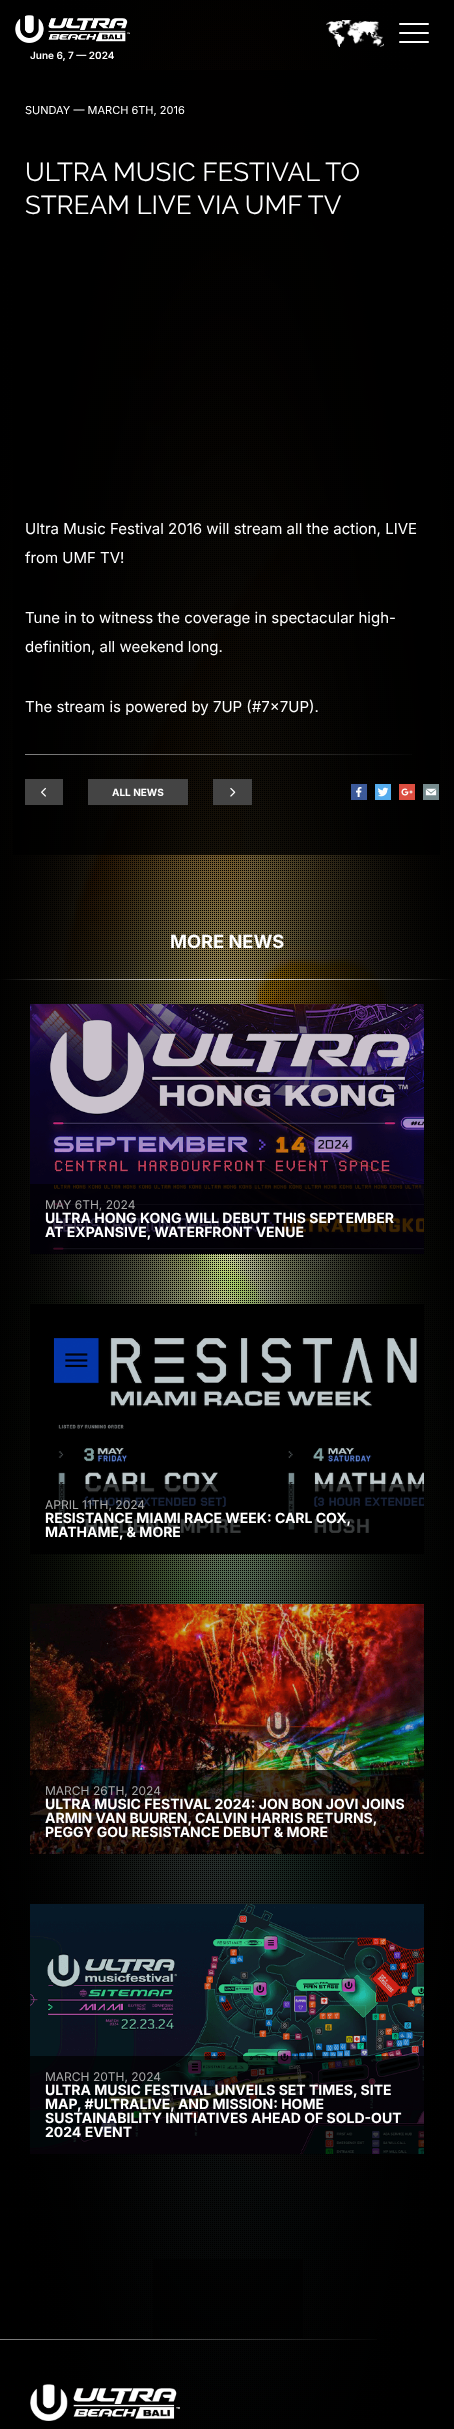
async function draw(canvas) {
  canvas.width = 454;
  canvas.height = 2429;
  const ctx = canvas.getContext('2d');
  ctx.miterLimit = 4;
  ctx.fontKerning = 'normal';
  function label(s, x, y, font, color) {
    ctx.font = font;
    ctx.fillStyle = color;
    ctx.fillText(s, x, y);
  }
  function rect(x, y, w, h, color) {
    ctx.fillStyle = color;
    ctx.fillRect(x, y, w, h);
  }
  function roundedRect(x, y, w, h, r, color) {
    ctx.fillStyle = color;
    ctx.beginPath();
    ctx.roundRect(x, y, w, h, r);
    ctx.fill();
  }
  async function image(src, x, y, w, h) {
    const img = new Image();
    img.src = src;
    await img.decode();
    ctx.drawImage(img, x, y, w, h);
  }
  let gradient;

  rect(0, 0, 454, 2429, '#fff');
  await image('assets/img1.png', 0, 0, 454, 2429);
  await image('assets/img2.png', 0, 0, 453, 2429);
  gradient = ctx.createRadialGradient(227, 227.02, 0, 227, 227.02, 321);
  gradient.addColorStop(0, '#00000000');
  gradient.addColorStop(0.91, '#000');
  ctx.fillStyle = gradient;
  ctx.beginPath();
  ctx.rect(0, 0, 454, 2429);
  ctx.save();
  ctx.clip();
  ctx.scale(1, 1718 / 321);
  ctx.fillRect(0, 0, 454, 454);
  ctx.restore();
  ctx.beginPath();
  ctx.rect(0, 0, 454, 2429);
  ctx.save();
  ctx.clip();
  ctx.scale(1, 1718 / 321);
  ctx.fillRect(0, 0, 454, 454);
  ctx.restore();
  await image('assets/img3.png', 326, 20, 58, 27);
  roundedRect(399, 23, 30, 2, 1, '#fff');
  roundedRect(399, 32, 30, 2, 1, '#fff');
  roundedRect(399, 41, 30, 2, 1, '#fff');
  await image('assets/img4.png', 15, 15, 115, 28);
  label('June 6, 7 — 2024', 30, 59, '600 10px Inter', '#fff');
  rect(13, 70, 427, 785, '#000000cc');
  label('SUNDAY — MARCH 6TH, 2016', 25, 114, '11px Inter', '#fff');
  label('ULTRA MUSIC FESTIVAL TO', 25, 181, '26px Raleway', '#fff');
  label('STREAM LIVE VIA UMF TV', 25, 214, '26px Raleway', '#fff');
  label('Ultra Music Festival 2016 will stream all the action, LIVE', 25, 534, '15px Inter', '#fff');
  label('from UMF TV!', 25, 563, '15px Inter', '#fff');
  label('Tune in to witness the coverage in spectacular high-', 25, 623, '15px Inter', '#fff');
  label('definition, all weekend long.', 25, 652, '15px Inter', '#fff');
  label('The stream is powered by 7UP (#7x7UP).', 25, 712, '15px Inter', '#fff');
  gradient = ctx.createLinearGradient(25, 755, 429, 755);
  gradient.addColorStop(0, '#ffffff80');
  gradient.addColorStop(1, '#ffffff00');
  ctx.fillStyle = gradient;
  ctx.fillRect(25, 754, 387, 1);
  rect(25, 779, 38, 26, '#444');
  await image('assets/img5.png', 41, 787, 5, 10);
  rect(88, 779, 100, 26, '#444');
  label('ALL NEWS', 112, 796, 'bold 10px Inter', '#fff');
  rect(213, 779, 39, 26, '#444');
  await image('assets/img6.png', 230, 787, 6, 10);
  await image('assets/img7.png', 351, 784, 16, 16);
  await image('assets/img8.png', 375, 784, 16, 16);
  await image('assets/img9.png', 399, 784, 16, 16);
  await image('assets/img10.png', 423, 784, 16, 16);
  label('MORE NEWS', 170, 948, 'bold 18.25px Inter', '#fff');
  gradient = ctx.createLinearGradient(0, 980, 454, 980);
  gradient.addColorStop(0, '#ffffff00');
  gradient.addColorStop(0.5, '#fff');
  gradient.addColorStop(1, '#ffffff00');
  ctx.fillStyle = gradient;
  ctx.fillRect(0, 979, 454, 1);
  await image('assets/img11.png', 30, 1004, 394, 250);
  rect(30, 1184, 394, 70, '#000000b3');
  label('MAY 6TH, 2024', 45, 1209, '12px Inter', '#aaa');
  label('ULTRA HONG KONG WILL DEBUT THIS SEPTEMBER', 45, 1223, 'bold 14px Inter', '#fff');
  label('AT EXPANSIVE, WATERFRONT VENUE', 45, 1237, 'bold 14px Inter', '#fff');
  await image('assets/img12.png', 30, 1304, 394, 250);
  rect(58, 1484, 366, 49, '#000000b3');
  label('APRIL 11TH, 2024', 45, 1509, '12px Inter', '#aaa');
  label('RESISTANCE MIAMI RACE WEEK: CARL COX,', 45, 1523, 'bold 14px Inter', '#fff');
  label('MATHAME, & MORE', 45, 1537, 'bold 14px Inter', '#fff');
  await image('assets/img13.png', 30, 1604, 394, 250);
  rect(30, 1770, 394, 84, '#000000b3');
  label('MARCH 26TH, 2024', 45, 1795, '12px Inter', '#aaa');
  label('ULTRA MUSIC FESTIVAL 2024: JON BON JOVI JOINS', 45, 1809, 'bold 14px Inter', '#fff');
  label('ARMIN VAN BUUREN, CALVIN HARRIS RETURNS,', 45, 1823, 'bold 14px Inter', '#fff');
  label('PEGGY GOU RESISTANCE DEBUT & MORE', 45, 1837, 'bold 14px Inter', '#fff');
  await image('assets/img14.png', 30, 1904, 394, 250);
  rect(30, 2056, 394, 98, '#000000b3');
  label('MARCH 20TH, 2024', 45, 2081, '12px Inter', '#aaa');
  label('ULTRA MUSIC FESTIVAL UNVEILS SET TIMES, SITE', 45, 2095, 'bold 14px Inter', '#fff');
  label('MAP, #ULTRALIVE, AND MISSION: HOME', 45, 2109, 'bold 14px Inter', '#fff');
  label('SUSTAINABILITY INITIATIVES AHEAD OF SOLD-OUT', 45, 2123, 'bold 14px Inter', '#fff');
  label('2024 EVENT', 45, 2137, 'bold 14px Inter', '#fff');
  rect(153, 2259, 150, 79, '#00000080');
  gradient = ctx.createLinearGradient(0, 2340, 394, 2340);
  gradient.addColorStop(0, '#ffffff80');
  gradient.addColorStop(1, '#ffffff00');
  ctx.fillStyle = gradient;
  ctx.fillRect(0, 2339, 377, 1);
  await image('assets/img15.png', 30, 2384, 150, 37);
}

draw(document.querySelector('canvas'));
